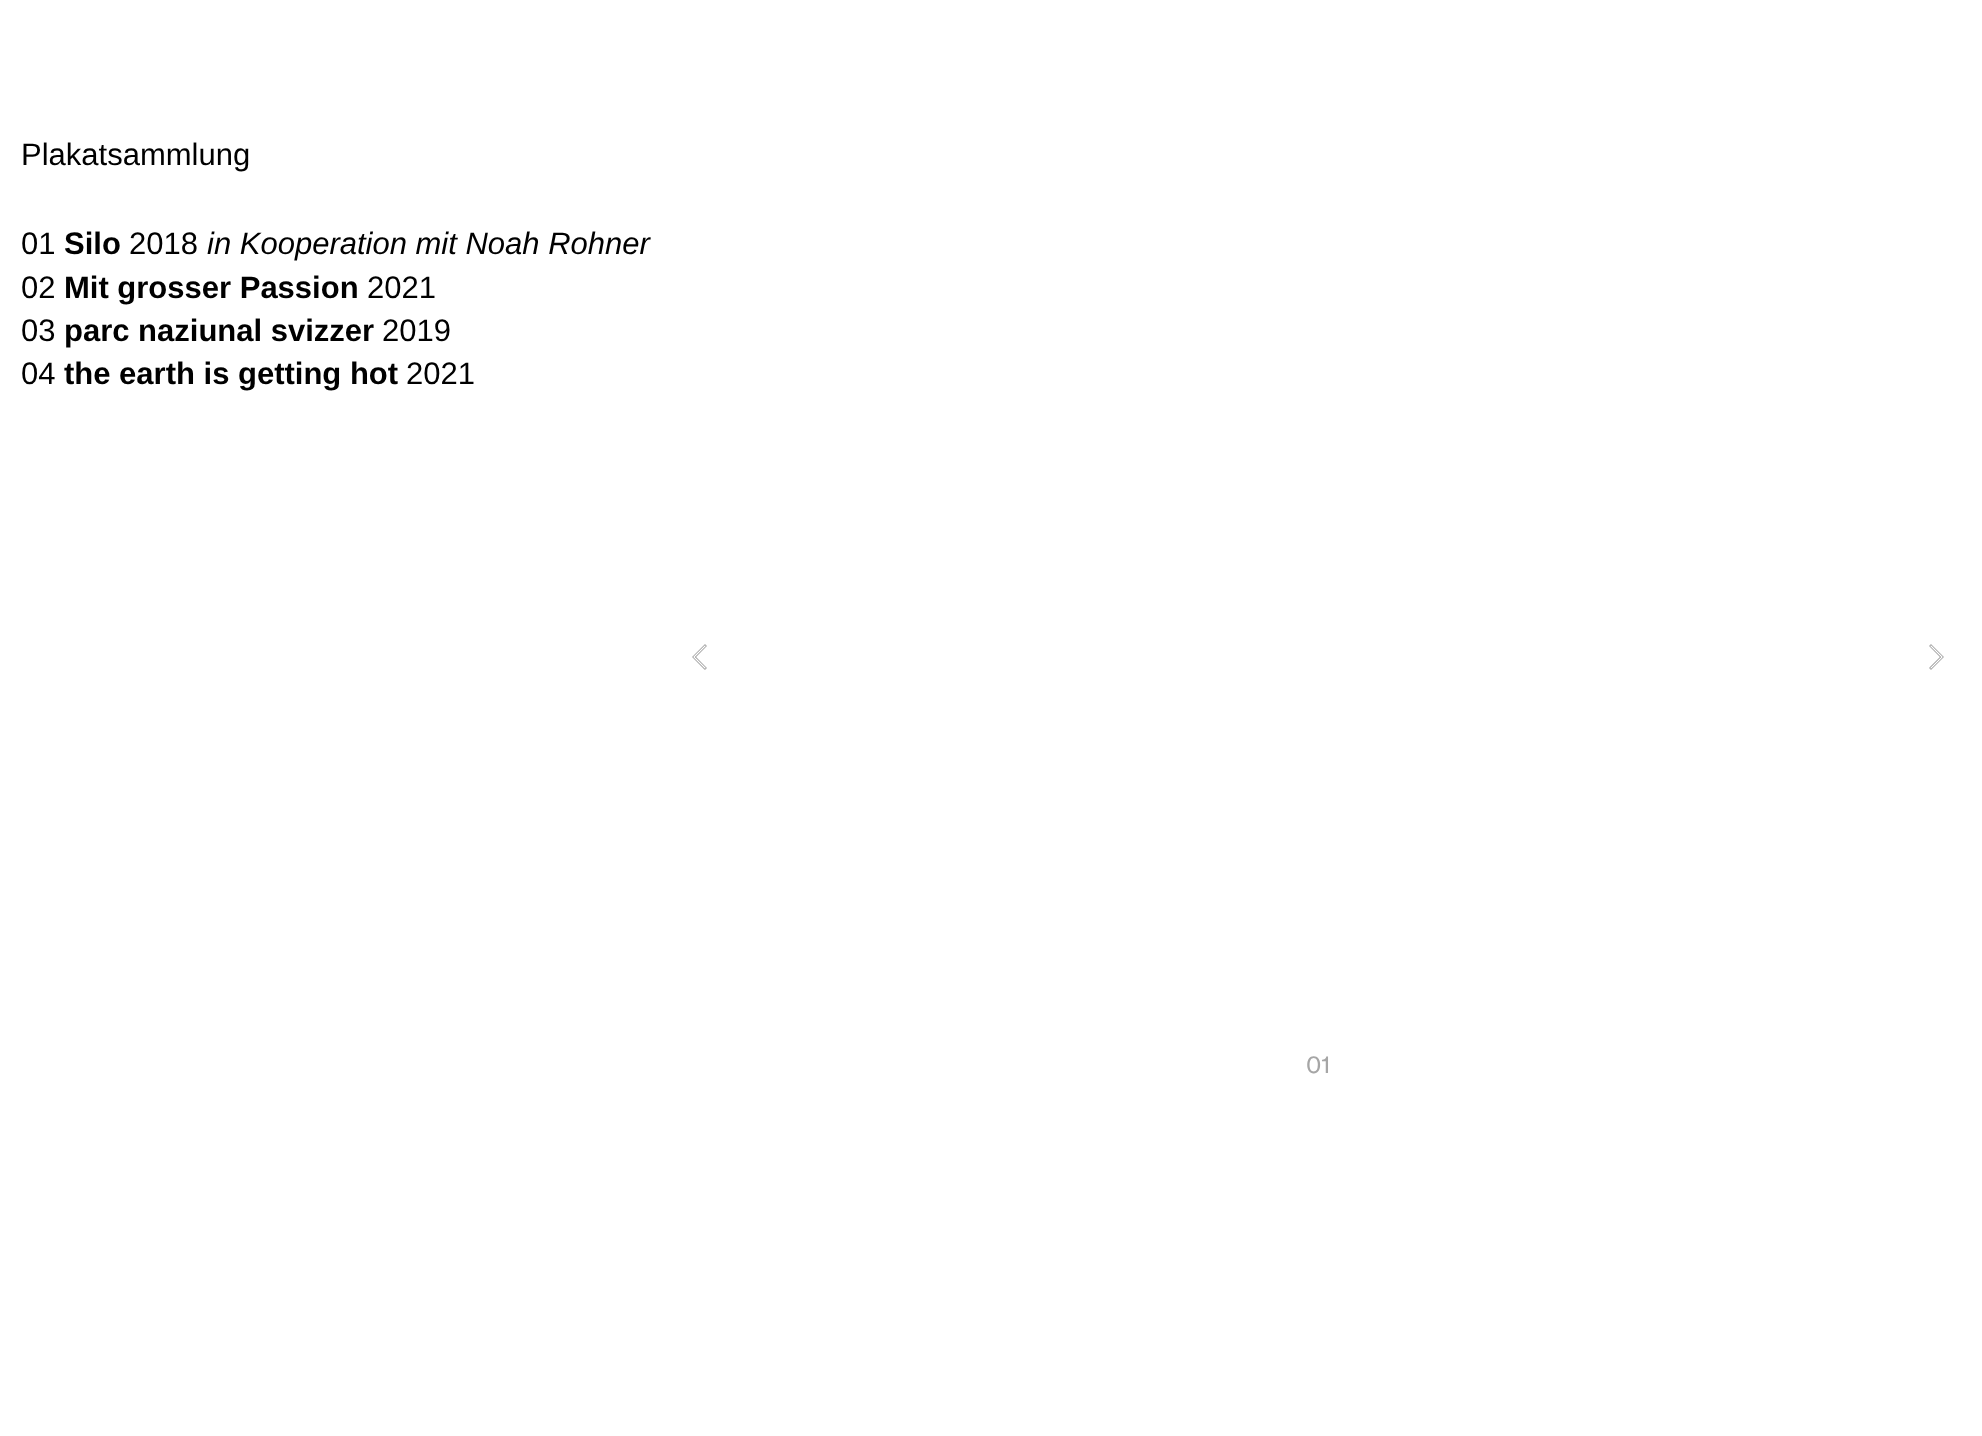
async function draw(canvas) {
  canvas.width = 1982;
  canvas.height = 1436;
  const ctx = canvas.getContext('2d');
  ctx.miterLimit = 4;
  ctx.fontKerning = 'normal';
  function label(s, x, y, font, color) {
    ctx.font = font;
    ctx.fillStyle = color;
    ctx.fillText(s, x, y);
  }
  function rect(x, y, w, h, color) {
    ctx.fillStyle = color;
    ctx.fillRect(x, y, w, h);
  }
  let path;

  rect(0, 0, 1982, 1436, '#fff');
  label('Plakatsammlung', 21, 165, '31px Liberation Sans', '#000');
  label('01', 21, 254, '31px Liberation Sans', '#000');
  label('Silo', 64, 254, 'bold 31px Liberation Sans', '#000');
  label('2018', 129, 254, '31px Liberation Sans', '#000');
  label('in Kooperation mit Noah Rohner', 207, 254, 'italic 31px Liberation Sans', '#000');
  label('02', 21, 298, '31px Liberation Sans', '#000');
  label('Mit grosser Passion', 64, 298, 'bold 31px Liberation Sans', '#000');
  label('2021', 367, 298, '31px Liberation Sans', '#000');
  label('03', 21, 341, '31px Liberation Sans', '#000');
  label('parc naziunal svizzer', 64, 341, 'bold 31px Liberation Sans', '#000');
  label('2019', 382, 341, '31px Liberation Sans', '#000');
  label('04', 21, 384, '31px Liberation Sans', '#000');
  label('the earth is getting hot', 64, 384, 'bold 31px Liberation Sans', '#000');
  label('2021', 406, 384, '31px Liberation Sans', '#000');
  path = new Path2D('M705 668L694 657L705 646');
  ctx.strokeStyle = '#666';
  ctx.lineWidth = 2.5;
  ctx.lineCap = 'square';
  ctx.stroke(path);
  path = new Path2D('M705 668L694 657L705 646');
  ctx.strokeStyle = '#fff';
  ctx.lineWidth = 1.5;
  ctx.stroke(path);
  path = new Path2D('M1931 668L1942 657L1931 646');
  ctx.strokeStyle = '#666';
  ctx.lineWidth = 2.5;
  ctx.stroke(path);
  path = new Path2D('M1931 668L1942 657L1931 646');
  ctx.strokeStyle = '#fff';
  ctx.lineWidth = 1.5;
  ctx.stroke(path);
  label('01', 1306, 1073, '23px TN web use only', '#a6a6a6');
}

draw(document.querySelector('canvas'));
